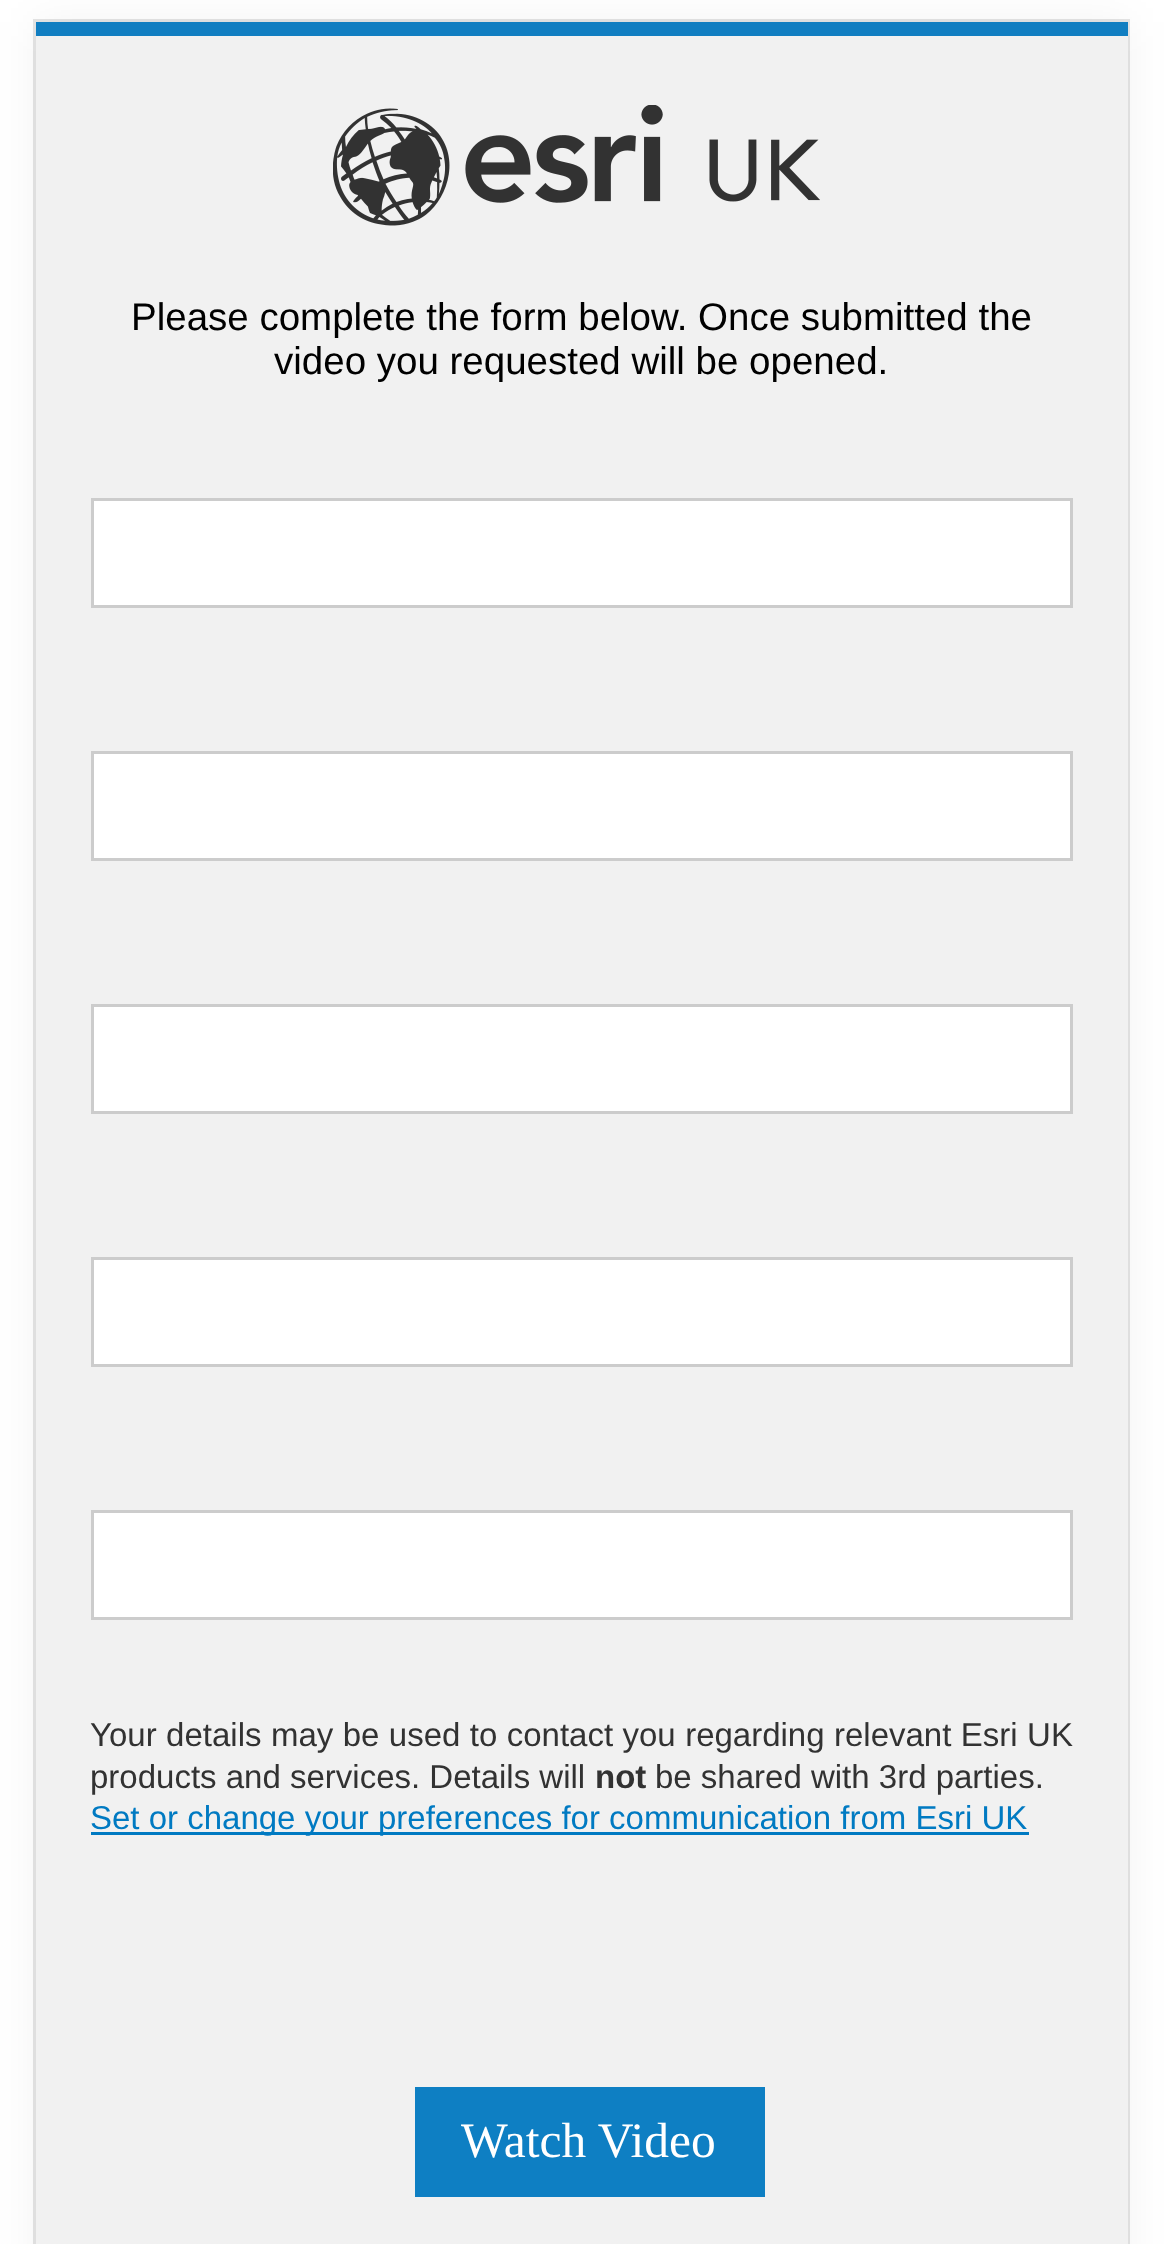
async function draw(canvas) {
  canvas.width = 1175;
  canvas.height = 2244;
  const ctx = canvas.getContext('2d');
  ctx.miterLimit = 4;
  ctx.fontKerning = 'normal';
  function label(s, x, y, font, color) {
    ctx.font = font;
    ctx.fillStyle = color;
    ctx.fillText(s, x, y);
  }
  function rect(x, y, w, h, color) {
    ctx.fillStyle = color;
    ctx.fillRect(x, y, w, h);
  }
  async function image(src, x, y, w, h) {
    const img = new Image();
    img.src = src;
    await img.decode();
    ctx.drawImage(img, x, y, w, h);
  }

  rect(0, 0, 1175, 2244, '#fff');
  ctx.fillStyle = '#0000000d';
  ctx.filter = 'blur(22px)';
  ctx.beginPath();
  ctx.rect(36, 22, 1092, 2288);
  ctx.fill();
  ctx.filter = 'none';
  ctx.strokeStyle = '#0000001a';
  ctx.lineWidth = 3;
  ctx.strokeRect(34.5, 20.5, 1094, 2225);
  rect(36, 36, 1092, 2208, '#f1f1f1');
  rect(36, 22, 1092, 14, '#117ec1');
  await image('assets/img1.png', 333, 105, 487, 121);
  label('Please complete the form below. Once submitted the', 131, 330, '38.5px Liberation Sans', '#000');
  label('video you requested will be opened.', 274, 374, '38.5px Liberation Sans', '#000');
  ctx.fillStyle = '#fff';
  ctx.beginPath();
  ctx.rect(92.5, 499.5, 979, 107);
  ctx.fill();
  ctx.strokeStyle = '#ccc';
  ctx.stroke();
  ctx.beginPath();
  ctx.rect(92.5, 752.5, 979, 107);
  ctx.fill();
  ctx.stroke();
  ctx.beginPath();
  ctx.rect(92.5, 1005.5, 979, 107);
  ctx.fill();
  ctx.stroke();
  ctx.beginPath();
  ctx.rect(92.5, 1258.5, 979, 107);
  ctx.fill();
  ctx.stroke();
  ctx.beginPath();
  ctx.rect(92.5, 1511.5, 979, 107);
  ctx.fill();
  ctx.stroke();
  ctx.wordSpacing = '0.25px';
  label('Your details may be used to contact you regarding relevant Esri UK', 90, 1746, '33px Liberation Sans', '#323232');
  ctx.wordSpacing = '0px';
  label('products and services. Details will', 90, 1788, '33px Liberation Sans', '#323232');
  label('not', 595, 1788, 'bold 33px Liberation Sans', '#323232');
  label('be shared with 3rd parties.', 655, 1788, '33px Liberation Sans', '#323232');
  rect(91, 1832, 938, 3, '#007ac2');
  label('Set or change your preferences for communication from Esri UK', 90, 1829, '33px Liberation Sans', '#007ac2');
  rect(415, 2087, 350, 110, '#0e7fc3');
  label('Watch Video', 461, 2157, '49.5px Liberation Serif', '#fff');
}

draw(document.querySelector('canvas'));
